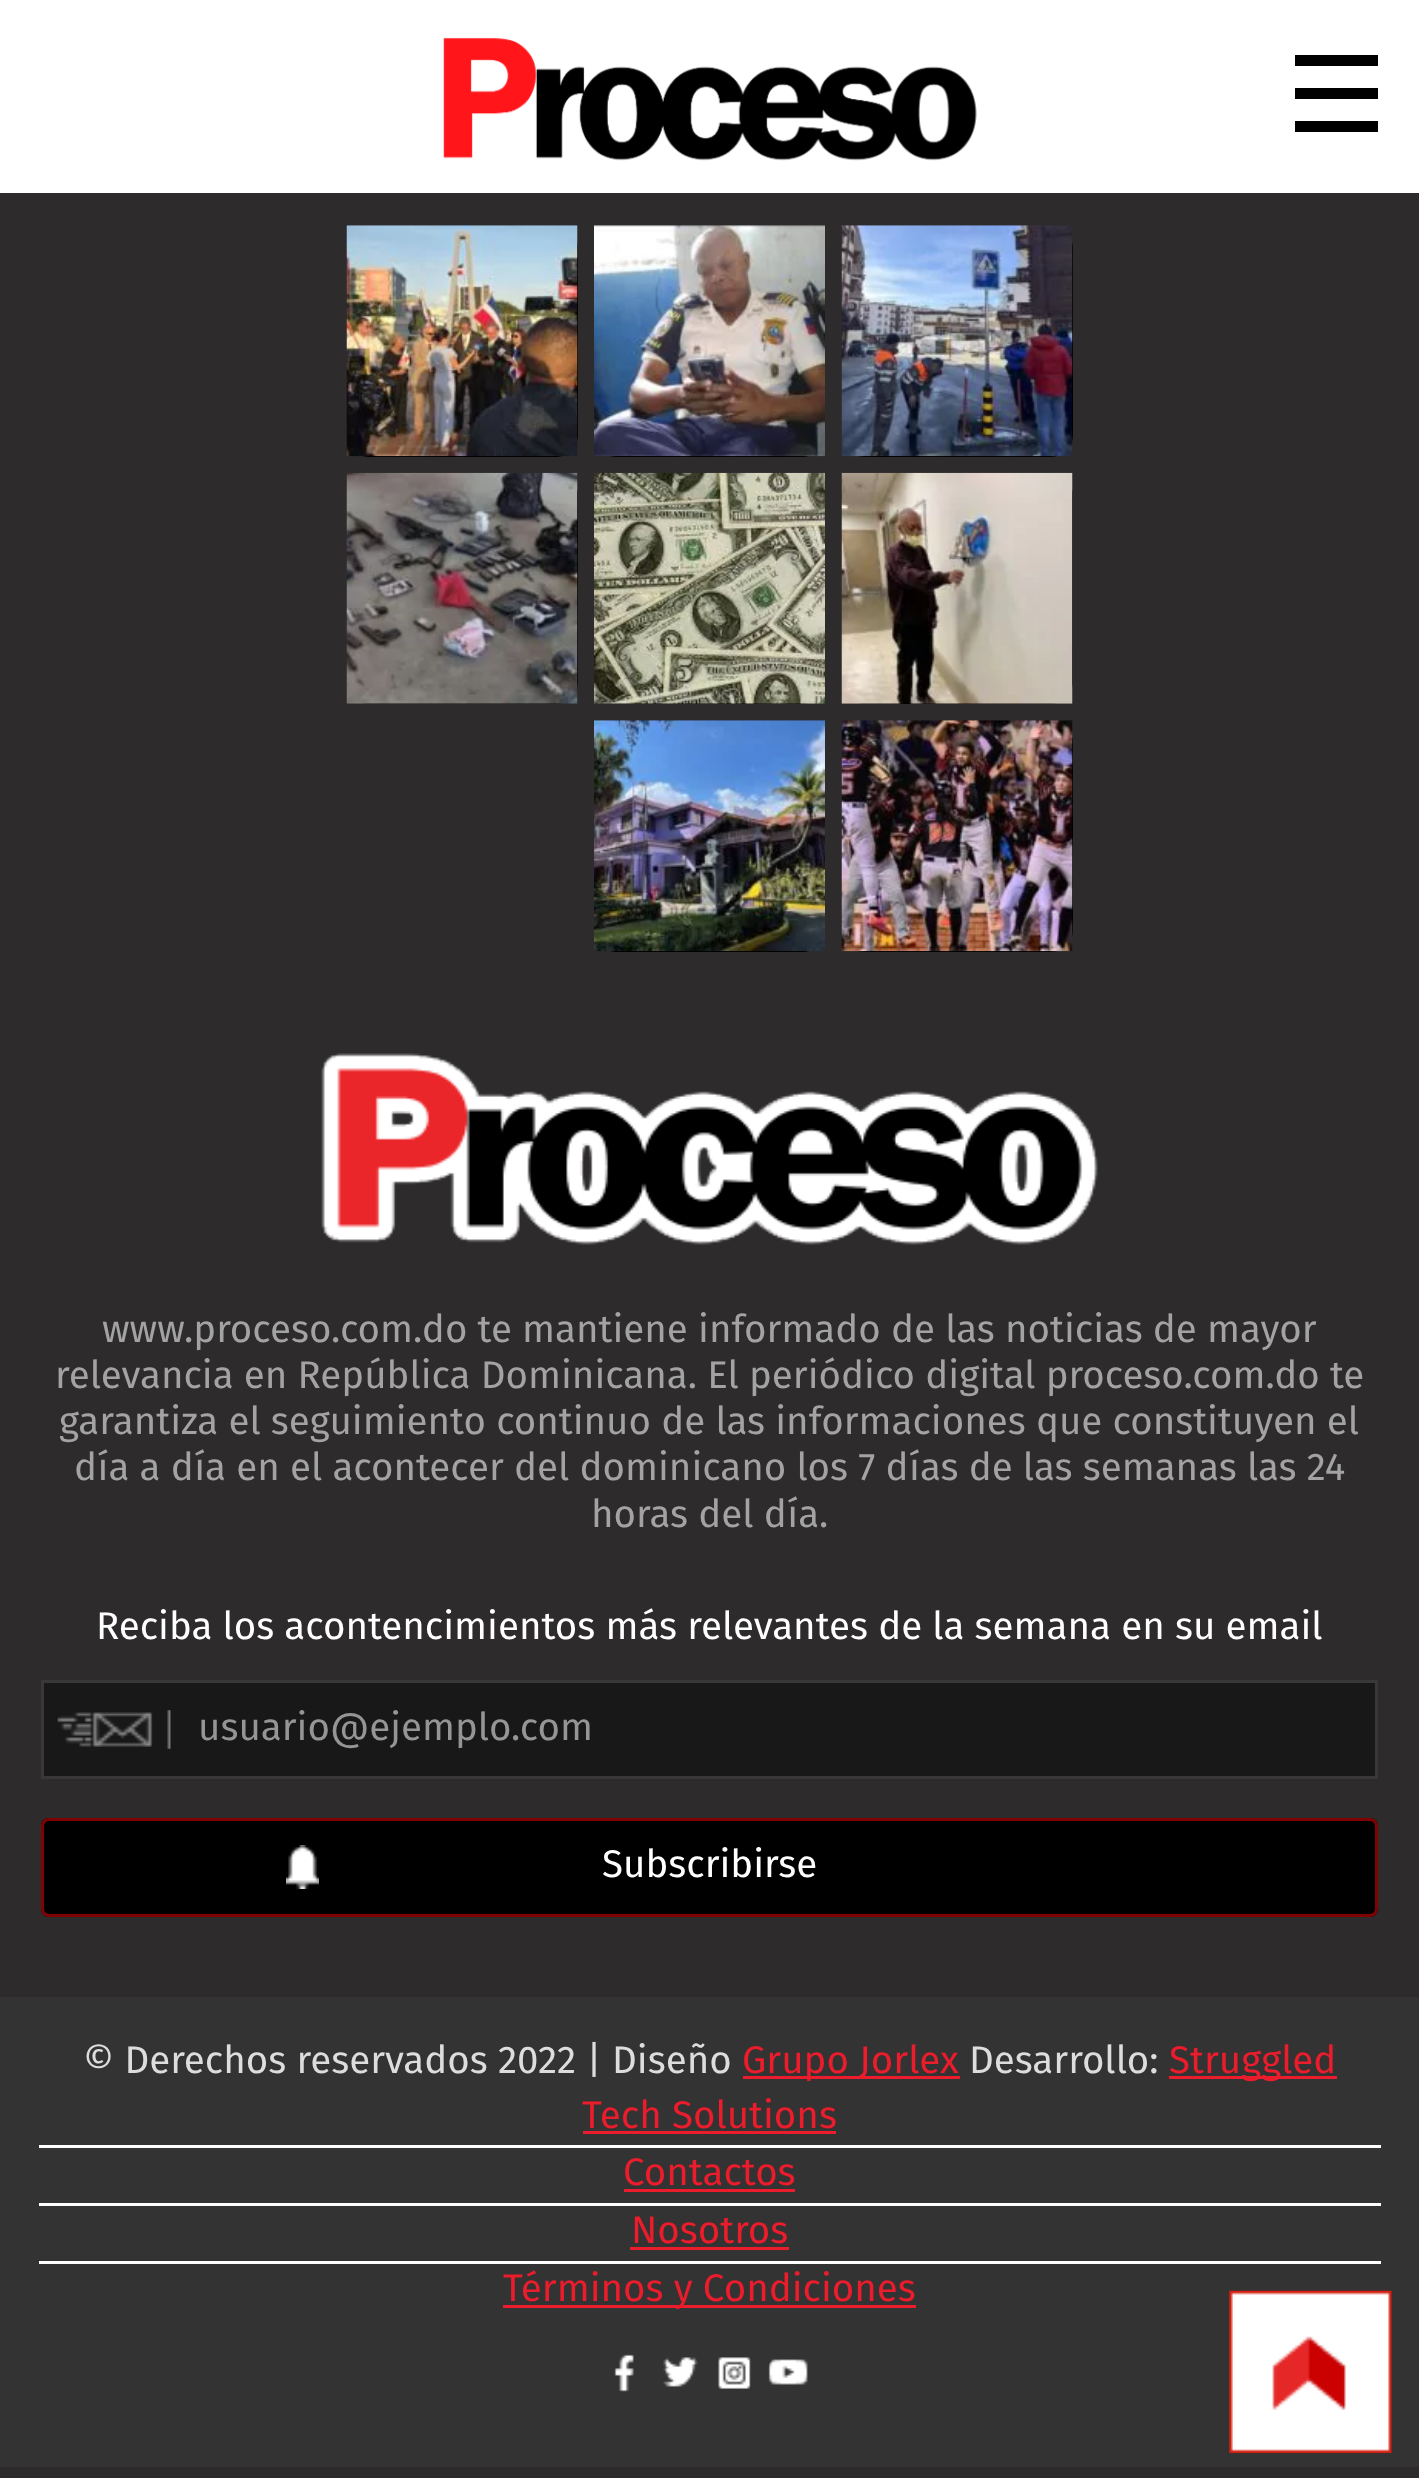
async function draw(canvas) {
  canvas.width = 1419;
  canvas.height = 2478;
  const ctx = canvas.getContext('2d');
  ctx.miterLimit = 4;
  ctx.fontKerning = 'normal';
  function label(s, x, y, font, color) {
    ctx.font = font;
    ctx.fillStyle = color;
    ctx.fillText(s, x, y);
  }
  function rect(x, y, w, h, color) {
    ctx.fillStyle = color;
    ctx.fillRect(x, y, w, h);
  }
  function roundedRect(x, y, w, h, r, color) {
    ctx.fillStyle = color;
    ctx.beginPath();
    ctx.roundRect(x, y, w, h, r);
    ctx.fill();
  }
  async function image(src, x, y, w, h) {
    const img = new Image();
    img.src = src;
    await img.decode();
    ctx.drawImage(img, x, y, w, h);
  }

  rect(0, 0, 1419, 2478, '#2d2b2c');
  rect(0, 0, 1419, 193, '#fff');
  await image('assets/img1.png', 443, 37, 534, 124);
  rect(1295, 55, 83, 11, '#000');
  rect(1295, 88, 83, 11, '#000');
  rect(1295, 121, 83, 11, '#000');
  roundedRect(347, 226, 231, 231, 22, '#000');
  await image('assets/img2.png', 346, 225, 232, 232);
  roundedRect(594, 226, 231, 231, 22, '#000');
  await image('assets/img3.png', 594, 225, 231, 232);
  roundedRect(842, 226, 231, 231, 22, '#000');
  await image('assets/img4.png', 841, 225, 232, 232);
  roundedRect(347, 473, 231, 231, 22, '#000');
  await image('assets/img5.png', 346, 472, 232, 232);
  roundedRect(594, 473, 231, 231, 22, '#000');
  await image('assets/img6.png', 594, 472, 231, 232);
  roundedRect(842, 473, 231, 231, 22, '#000');
  await image('assets/img7.png', 841, 472, 232, 232);
  roundedRect(594, 721, 231, 231, 22, '#000');
  await image('assets/img8.png', 594, 720, 231, 232);
  roundedRect(842, 721, 231, 231, 22, '#000');
  await image('assets/img9.png', 841, 720, 232, 232);
  await image('assets/img10.png', 321, 1053, 777, 192);
  label('www.proceso.com.do te mantiene informado de las noticias de mayor', 102, 1342, '38.5px Fira Sans', '#a3a3a3');
  label('relevancia en República Dominicana. El periódico digital proceso.com.do te', 55, 1388, '38.5px Fira Sans', '#a3a3a3');
  label('garantiza el seguimiento continuo de las informaciones que constituyen el', 59, 1434, '38.5px Fira Sans', '#a3a3a3');
  label('día a día en el acontecer del dominicano los 7 días de las semanas las 24', 74, 1480, '38.5px Fira Sans', '#a3a3a3');
  label('horas del día.', 591, 1527, '38.5px Fira Sans', '#a3a3a3');
  label('Reciba los acontencimientos más relevantes de la semana en su email', 96, 1639, '38.5px Fira Sans', '#fff');
  rect(44, 1683, 1331, 93, '#181818');
  await image('assets/img11.png', 57, 1710, 114, 39);
  ctx.strokeStyle = '#383838';
  ctx.lineWidth = 3;
  ctx.strokeRect(42.5, 1681.5, 1334, 96);
  label('usuario@ejemplo.com', 198, 1740, '38.5px Fira Sans', '#959595');
  roundedRect(41, 1818, 1337, 99, 8, '#000');
  await image('assets/img12.png', 286, 1845, 33, 44);
  ctx.beginPath();
  ctx.roundRect(42.5, 1819.5, 1334, 96, 6.5);
  ctx.strokeStyle = '#7f0303';
  ctx.stroke();
  label('Subscribirse', 602, 1877, '38.5px Fira Sans', '#fff');
  rect(0, 1997, 1419, 470, '#333');
  label('© Derechos reservados 2022 | Diseño', 83, 2073, '38.5px Fira Sans', '#ddd');
  rect(743, 2076, 217, 3, '#eb1c2b');
  label('Grupo Jorlex', 742, 2073, '38.5px Fira Sans', '#eb1c2b');
  label('Desarrollo:', 969, 2073, '38.5px Fira Sans', '#ddd');
  rect(1169, 2076, 168, 3, '#eb1c2b');
  label('Struggled', 1169, 2073, '38.5px Fira Sans', '#eb1c2b');
  label('Tech Solutions', 582, 2128, '38.5px Fira Sans', '#eb1c2b');
  rect(583, 2131, 253, 3, '#eb1c2b');
  rect(39, 2145, 1342, 3, '#fff');
  label('Contactos', 623, 2185, '38.5px Fira Sans', '#eb1c2b');
  rect(624, 2189, 171, 3, '#eb1c2b');
  rect(39, 2203, 1342, 3, '#fff');
  label('Nosotros', 631, 2243, '38.5px Fira Sans', '#eb1c2b');
  rect(630, 2247, 159, 3, '#eb1c2b');
  rect(39, 2261, 1342, 3, '#fff');
  rect(503, 2305, 413, 3, '#eb1c2b');
  label('Términos y Condiciones', 503, 2301, '38.5px Fira Sans', '#eb1c2b');
  await image('assets/img13.png', 614, 2354, 20, 38);
  await image('assets/img14.png', 663, 2357, 35, 30);
  await image('assets/img15.png', 718, 2357, 33, 32);
  await image('assets/img16.png', 768, 2359, 40, 26);
  await image('assets/img17.png', 1229, 2290, 163, 163);
}

draw(document.querySelector('canvas'));
